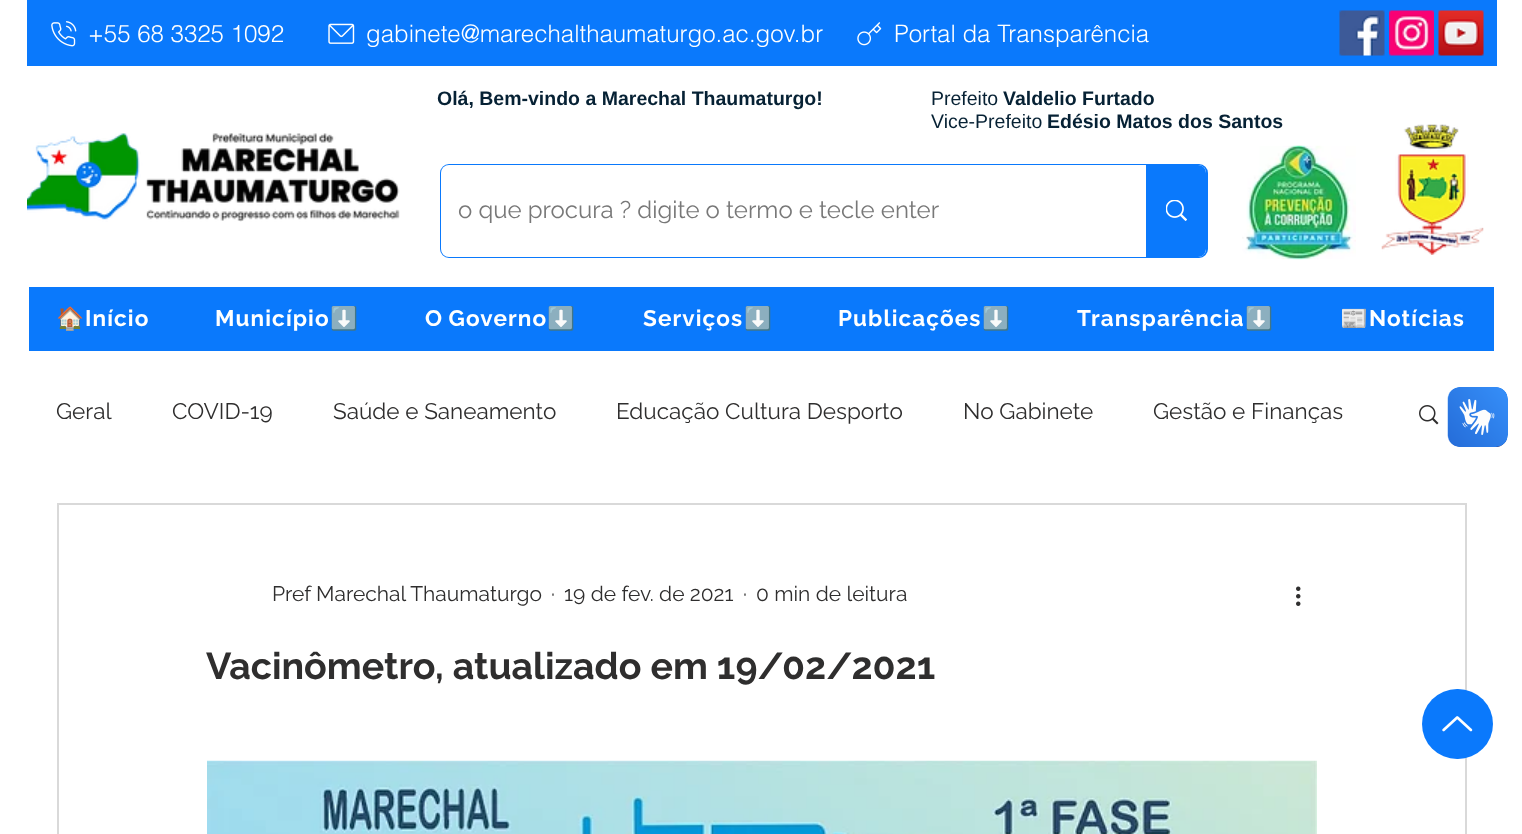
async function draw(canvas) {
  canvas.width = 1522;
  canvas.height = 834;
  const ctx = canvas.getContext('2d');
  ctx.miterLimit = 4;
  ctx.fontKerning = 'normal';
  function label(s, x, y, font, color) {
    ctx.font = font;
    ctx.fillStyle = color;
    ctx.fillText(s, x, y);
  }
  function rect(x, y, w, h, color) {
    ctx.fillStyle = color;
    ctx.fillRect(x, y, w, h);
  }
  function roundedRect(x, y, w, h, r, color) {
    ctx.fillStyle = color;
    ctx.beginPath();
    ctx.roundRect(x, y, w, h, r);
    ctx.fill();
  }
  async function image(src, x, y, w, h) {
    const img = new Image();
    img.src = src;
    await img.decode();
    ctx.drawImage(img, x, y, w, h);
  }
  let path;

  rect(0, 0, 1522, 834, '#fff');
  rect(27, 0, 1470, 66, '#0a79fc');
  await image('assets/img1.png', 51, 21, 26, 26);
  label('+55 68 3325 1092', 88, 42, '300 24px helvetica', '#fff');
  await image('assets/img2.png', 328, 23, 27, 21);
  label('gabinete@marechalthaumaturgo.ac.gov.br', 366, 42, '300 24px helvetica', '#fff');
  await image('assets/img3.png', 857, 22, 25, 24);
  label('Portal da Transparência', 894, 42, '300 24px helvetica', '#fff');
  await image('assets/img4.png', 1339, 10, 46, 46);
  await image('assets/img5.png', 1389, 10, 45, 46);
  await image('assets/img6.png', 1438, 10, 46, 46);
  label('Olá, Bem-vindo a Marechal Thaumaturgo!', 437, 105, 'bold 19.5px Liberation Sans', '#062134');
  label('Prefeito', 931, 105, '19.5px Liberation Sans', '#062134');
  label('Valdelio Furtado', 1003, 105, 'bold 19.5px Liberation Sans', '#062134');
  label('Vice-Prefeito', 931, 128, '19.5px Liberation Sans', '#062134');
  label('Edésio Matos dos Santos', 1047, 128, 'bold 19.5px Liberation Sans', '#062134');
  await image('assets/img7.png', 27, 133, 373, 89);
  ctx.beginPath();
  ctx.roundRect(441, 165, 766, 92, 8);
  ctx.strokeStyle = '#0a79fc';
  ctx.lineWidth = 2;
  ctx.stroke();
  roundedRect(441, 165, 765, 92, 8, '#fff');
  label('o que procura ? digite o termo e tecle enter', 458, 218, '24px Raleway', '#787878');
  ctx.fillStyle = '#0a79fc';
  ctx.beginPath();
  ctx.roundRect(1146, 165, 60, 92, [0, 8, 8, 0]);
  ctx.fill();
  await image('assets/img8.png', 1166, 200, 21, 21);
  await image('assets/img9.png', 1242, 145, 114, 115);
  await image('assets/img10.png', 1381, 124, 103, 131);
  rect(29, 287, 1465, 64, '#0a79fc');
  ctx.letterSpacing = '1.1px';
  label('🏠', 56, 326, 'bold 22.5px Noto Color Emoji', '#fff');
  label('Início', 85, 326, 'bold 22.5px Raleway', '#fff');
  label('Município', 215, 326, 'bold 22.5px Raleway', '#fff');
  label('⬇️', 330, 326, 'bold 22.5px Noto Color Emoji', '#fff');
  ctx.wordSpacing = '-1px';
  label('O Governo', 425, 326, 'bold 22.5px Raleway', '#fff');
  ctx.wordSpacing = '0px';
  label('⬇️', 547, 326, 'bold 22.5px Noto Color Emoji', '#fff');
  label('Serviços', 643, 326, 'bold 22.5px Raleway', '#fff');
  label('⬇️', 744, 326, 'bold 22.5px Noto Color Emoji', '#fff');
  label('Publicações', 838, 326, 'bold 22.5px Raleway', '#fff');
  label('⬇️', 982, 326, 'bold 22.5px Noto Color Emoji', '#fff');
  label('Transparência', 1077, 326, 'bold 22.5px Raleway', '#fff');
  label('⬇️', 1245, 326, 'bold 22.5px Noto Color Emoji', '#fff');
  label('📰', 1340, 326, 'bold 22.5px Noto Color Emoji', '#fff');
  label('Notícias', 1369, 326, 'bold 22.5px Raleway', '#fff');
  ctx.fillStyle = '#0a79fc';
  path = new Path2D('M1470 319.5L1459.5 307.5L1458 309L1467.5 319.5L1458 330L1459.5 331.5Z');
  ctx.fill(path);
  ctx.letterSpacing = '0px';
  label('Geral', 56, 419, '22.5px Raleway', '#2f2e2e');
  label('COVID-19', 172, 419, '22.5px Raleway', '#2f2e2e');
  label('Saúde e Saneamento', 333, 419, '22.5px Raleway', '#2f2e2e');
  label('Educação Cultura Desporto', 616, 419, '22.5px Raleway', '#2f2e2e');
  label('No Gabinete', 963, 419, '22.5px Raleway', '#2f2e2e');
  label('Gestão e Finanças', 1153, 419, '22.5px Raleway', '#2f2e2e');
  await image('assets/img11.png', 1419, 405, 20, 20);
  ctx.strokeStyle = '#d9d9d9';
  ctx.strokeRect(58, 504, 1408, 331);
  label('Pref Marechal Thaumaturgo', 272, 601, '21px Raleway', '#2f2e2e');
  label('·', 551, 601, '21px Raleway', '#2f2e2e');
  label('19 de fev. de 2021', 564, 601, '21px Raleway', '#2f2e2e');
  label('·', 743, 601, '21px Raleway', '#2f2e2e');
  label('0 min de leitura', 756, 601, '21px Raleway', '#2f2e2e');
  await image('assets/img12.png', 1296, 586, 5, 20);
  label('Vacinômetro, atualizado em 19/02/2021', 206, 679, 'bold 37.5px Raleway', '#2f2e2e');
  await image('assets/img13.png', 207, 760, 1110, 74);
  roundedRect(1422, 689, 71, 70, 35, '#0a79fc');
  await image('assets/img14.png', 1442, 716, 31, 16);
  await image('assets/img15.png', 1447, 387, 61, 60);
  await image('assets/img16.png', 1448, 387, 60, 60);
}

draw(document.querySelector('canvas'));
